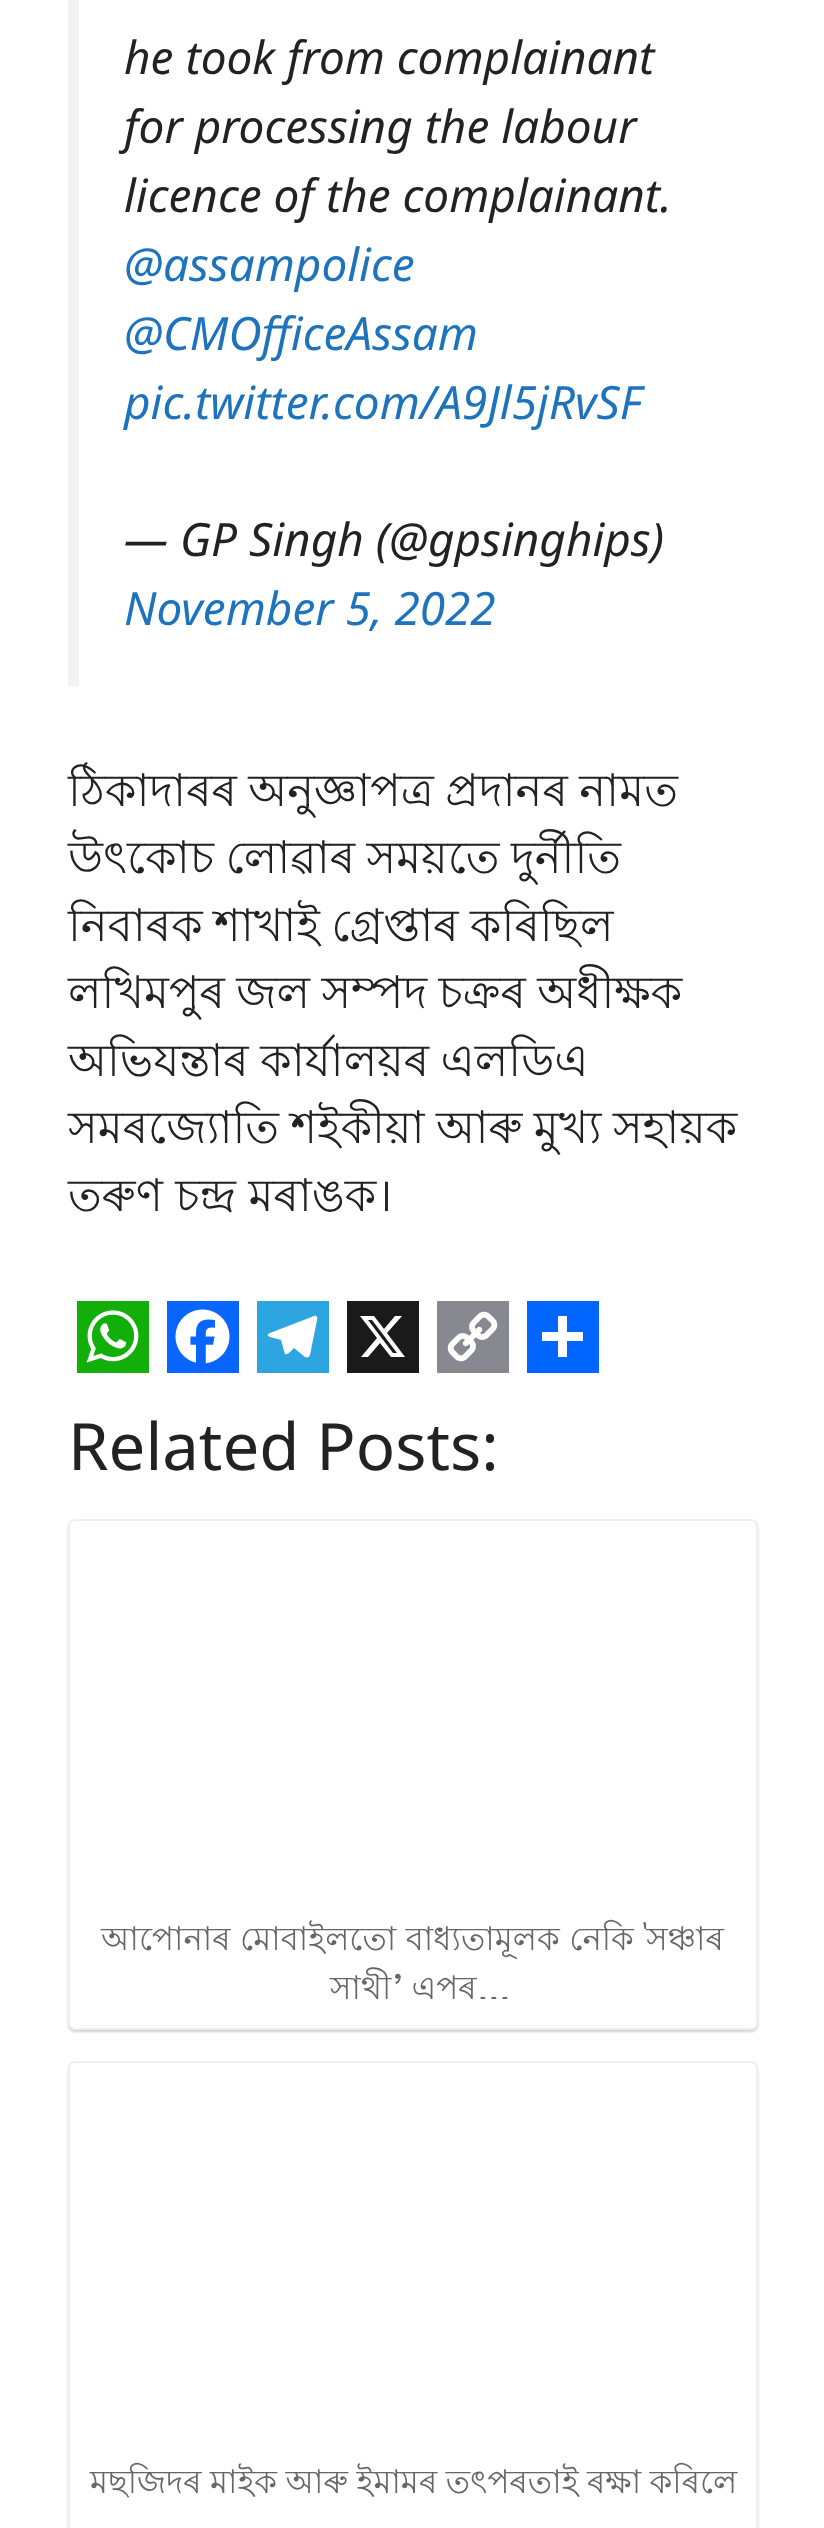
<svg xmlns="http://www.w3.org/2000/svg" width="824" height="2528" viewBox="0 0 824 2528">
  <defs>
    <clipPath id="clip1"><path d="M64 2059H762V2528H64ZM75 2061H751C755 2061 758 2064 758 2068V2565C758 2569 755 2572 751 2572H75C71 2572 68 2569 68 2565V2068C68 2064 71 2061 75 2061Z" clip-rule="evenodd"/></clipPath>
  </defs>
  <rect width="100%" height="100%" fill="#fff"/>
  <path d="M68 0h11v686H68z" fill="#f2f2f2"/>
  <path d="M77 1301h72v72H77z" fill="#12af0a"/>
  <image x="86" y="1310" width="53" height="53" href="img/1.png"/>
  <path d="M167 1301h72v72H167z" fill="#0866ff"/>
  <image x="175" y="1309" width="55" height="55" href="img/2.png"/>
  <path d="M257 1301h72v72H257z" fill="#2ca5e0"/>
  <path d="M314 1316L270 1333C267 1334 267 1336 270 1337L281 1340L285 1354C287 1356 293 1349 294 1348L305 1357C308 1358 309 1357 310 1355L317 1320C318 1316 316 1315 314 1316Z" fill="#fff"/>
  <path d="M347 1301h72v72H347z" fill="#1a1a1a"/>
  <path d="M395 1316H402L387 1333L405 1357H391L380 1343L368 1357H361L377 1338L360 1316H374L384 1329ZM393 1353H397L372 1320H368Z" fill="#fff"/>
  <path d="M437 1301h72v72H437z" fill="#888990"/>
  <image x="447" y="1311" width="51" height="51" href="img/3.png"/>
  <path d="M527 1301h72v72H527z" fill="#0166ff"/>
  <path d="M558 1316h9v41H558z" fill="#fff"/>
  <path d="M542 1332h41v9H542z" fill="#fff"/>
  <rect x="68" y="1521" width="690" height="511" rx="7" fill="#0000002e" filter="blur(1px)"/>
  <rect x="69" y="1520" width="688" height="509" rx="6" fill="#fff" stroke="#efefef" stroke-width="2"/>
  <g clip-path="url(#clip1)">
    <rect x="68" y="2063" width="690" height="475" rx="7" fill="#0000002e" filter="blur(1px)"/>
  </g>
  <rect x="69" y="2062" width="688" height="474" rx="6" fill="none" stroke="#efefef" stroke-width="2"/>
  <g font-family="Noto Sans" font-size="45.9" font-style="italic" fill="#222">
    <text x="124" y="74">he took from complainant</text>
    <text x="124" y="143">for processing the labour</text>
    <text x="124" y="212">licence of the complainant.</text>
  </g>
  <g font-family="Noto Sans" font-size="45.9" font-style="italic" fill="#1e73be">
    <text x="124" y="281">@assampolice</text>
    <text x="124" y="350">@CMOfficeAssam</text>
    <text x="124" y="419">pic.twitter.com/A9Jl5jRvSF</text>
  </g>
  <text x="124" y="556" font-family="Noto Sans" font-size="45.9" font-style="italic" fill="#222">— GP Singh (@gpsinghips)</text>
  <text x="124" y="625" font-family="Noto Sans" font-size="45.9" font-style="italic" fill="#1e73be">November 5, 2022</text>
  <g font-family="Lohit Bengali" font-size="45" fill="#222">
    <text x="68" y="806" word-spacing="-1">ঠিকাদাৰৰ অনুজ্ঞাপত্ৰ প্ৰদানৰ নামত</text>
    <text x="68" y="873" word-spacing="-1">উৎকোচ লোৱাৰ সময়তে দুৰ্নীতি</text>
    <text x="68" y="941" word-spacing="-1">নিবাৰক শাখাই গ্ৰেপ্তাৰ কৰিছিল</text>
    <text x="68" y="1008" word-spacing="-1">লখিমপুৰ জল সম্পদ চক্ৰৰ অধীক্ষক</text>
    <text x="68" y="1076" word-spacing="-1">অভিযন্তাৰ কাৰ্যালয়ৰ এলডিএ</text>
    <text x="68" y="1143" word-spacing="-1">সমৰজ্যোতি শইকীয়া আৰু মুখ্য সহায়ক</text>
    <text x="68" y="1211">তৰুণ চন্দ্ৰ মৰাঙক।</text>
  </g>
  <text x="68" y="1470" font-family="Noto Sans" font-size="65.25" fill="#222">Related Posts:</text>
  <g font-family="Lohit Bengali" font-size="32.5" fill="#666">
    <text x="101" y="1950" word-spacing="0.5">আপোনাৰ মোবাইলতো বাধ্যতামূলক নেকি 'সঞ্চাৰ</text>
    <text x="330" y="1999" word-spacing="-2">সাথী’ এপৰ…</text>
    <text x="90" y="2493" word-spacing="-0.5">মছজিদৰ মাইক আৰু ইমামৰ তৎপৰতাই ৰক্ষা কৰিলে</text>
  </g>
</svg>
